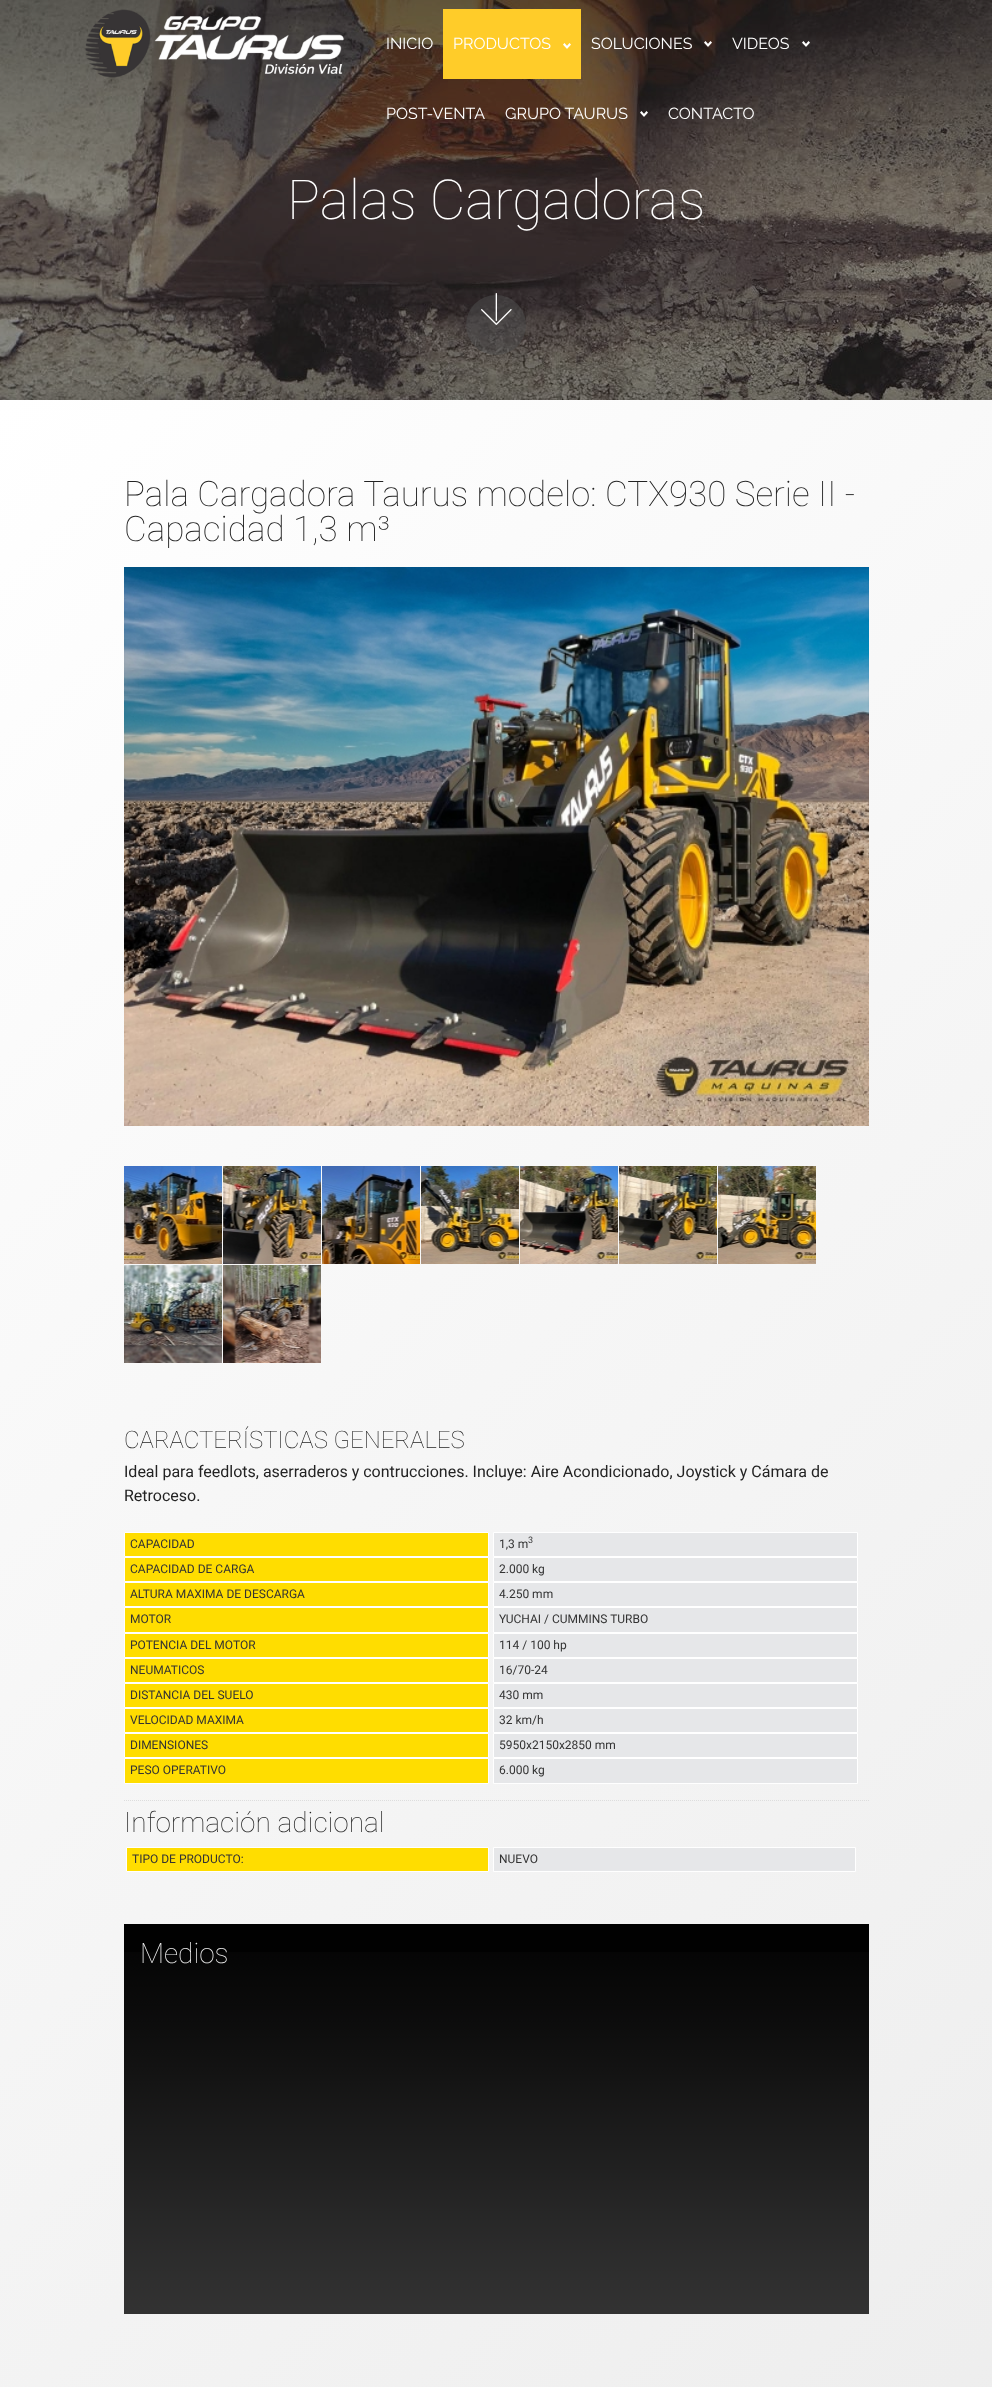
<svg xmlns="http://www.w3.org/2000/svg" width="992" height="2387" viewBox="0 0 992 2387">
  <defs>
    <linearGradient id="g1" gradientUnits="userSpaceOnUse" x1="-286" y1="686" x2="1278" y2="2249"><stop offset="0" stop-color="#fff"/><stop offset="0.47" stop-color="#f6f6f6"/><stop offset="1" stop-color="#ededed"/></linearGradient>
  </defs>
  <rect width="100%" height="100%" fill="#fff"/>
  <image x="0" y="0" width="992" height="400" href="img/6.png"/>
  <image x="85" y="9" width="260" height="69" href="img/1.png"/>
  <path d="M443 9h138v70H443z" fill="#ffcc29"/>
  <image x="563" y="43" width="8" height="6" href="img/2.png"/>
  <image x="704" y="41" width="8" height="6" href="img/3.png"/>
  <image x="802" y="41" width="8" height="6" href="img/4.png"/>
  <image x="640" y="111" width="8" height="6" href="img/5.png"/>
  <circle cx="496" cy="325" r="30" fill="#50505080"/>
  <image x="481" y="293" width="31" height="32" href="img/7.png"/>
  <path d="M0 400h992v1987H0z" fill="url(#g1)"/>
  <image x="124" y="567" width="745" height="559" href="img/8.png"/>
  <image x="124" y="1166" width="98" height="98" href="img/9.png"/>
  <image x="223" y="1166" width="98" height="98" href="img/10.png"/>
  <image x="322" y="1166" width="98" height="98" href="img/11.png"/>
  <image x="421" y="1166" width="98" height="98" href="img/12.png"/>
  <image x="520" y="1166" width="98" height="98" href="img/13.png"/>
  <image x="619" y="1166" width="98" height="98" href="img/14.png"/>
  <image x="718" y="1166" width="98" height="98" href="img/15.png"/>
  <image x="124" y="1265" width="98" height="98" href="img/16.png"/>
  <image x="223" y="1265" width="98" height="98" href="img/17.png"/>
  <path d="M124.5 1532.5h364v24H124.5z" fill="#fd0" stroke="#fff"/>
  <path d="M493.5 1532.5h364v24H493.5z" fill="#e6e7e9" stroke="#fff"/>
  <path d="M124.5 1557.5h364v24H124.5z" fill="#fd0" stroke="#fff"/>
  <path d="M493.5 1557.5h364v24H493.5z" fill="#e6e7e9" stroke="#fff"/>
  <path d="M124.5 1582.5h364v24H124.5z" fill="#fd0" stroke="#fff"/>
  <path d="M493.5 1582.5h364v24H493.5z" fill="#e6e7e9" stroke="#fff"/>
  <path d="M124.5 1607.5h364v25H124.5z" fill="#fd0" stroke="#fff"/>
  <path d="M493.5 1607.5h364v25H493.5z" fill="#e6e7e9" stroke="#fff"/>
  <path d="M124.5 1633.5h364v24H124.5z" fill="#fd0" stroke="#fff"/>
  <path d="M493.5 1633.5h364v24H493.5z" fill="#e6e7e9" stroke="#fff"/>
  <path d="M124.5 1658.5h364v24H124.5z" fill="#fd0" stroke="#fff"/>
  <path d="M493.5 1658.5h364v24H493.5z" fill="#e6e7e9" stroke="#fff"/>
  <path d="M124.5 1683.5h364v24H124.5z" fill="#fd0" stroke="#fff"/>
  <path d="M493.5 1683.5h364v24H493.5z" fill="#e6e7e9" stroke="#fff"/>
  <path d="M124.5 1708.5h364v24H124.5z" fill="#fd0" stroke="#fff"/>
  <path d="M493.5 1708.5h364v24H493.5z" fill="#e6e7e9" stroke="#fff"/>
  <path d="M124.5 1733.5h364v24H124.5z" fill="#fd0" stroke="#fff"/>
  <path d="M493.5 1733.5h364v24H493.5z" fill="#e6e7e9" stroke="#fff"/>
  <path d="M124.5 1758.5h364v25H124.5z" fill="#fd0" stroke="#fff"/>
  <path d="M493.5 1758.5h364v25H493.5z" fill="#e6e7e9" stroke="#fff"/>
  <path d="M124 1800.5H869" fill="none" stroke="#ddd" stroke-dasharray="1 1"/>
  <path d="M126.5 1847.5h362v24H126.5z" fill="#fd0" stroke="#fff"/>
  <path d="M493.5 1847.5h362v24H493.5z" fill="#e6e7e9" stroke="#fff"/>
  <path d="M124 1924h745v28H124z" fill="#010101"/>
  <image x="124" y="1952" width="745" height="362" href="img/18.png"/>
  <g font-family="Raleway" font-size="16" fill="#fff">
    <text x="386" y="49">INICIO</text>
    <text x="453" y="49">PRODUCTOS</text>
    <text x="591" y="49">SOLUCIONES</text>
    <text x="732" y="49">VIDEOS</text>
    <text x="386" y="119">POST-VENTA</text>
    <text x="505" y="119">GRUPO TAURUS</text>
    <text x="668" y="119">CONTACTO</text>
  </g>
  <text x="287" y="219" font-family="Roboto" font-size="55" font-weight="100" fill="#fff">Palas Cargadoras</text>
  <g font-family="Roboto" font-size="35" font-weight="100" fill="#232323">
    <text x="124" y="506">Pala Cargadora Taurus modelo: CTX930 Serie II -</text>
    <text x="124" y="541">Capacidad 1,3 m³</text>
  </g>
  <text x="124" y="1448" font-family="Roboto" font-size="24" font-weight="100" fill="#232323">CARACTERÍSTICAS GENERALES</text>
  <g font-family="Roboto" font-size="16" fill="#232323">
    <text x="124" y="1477">Ideal para feedlots, aserraderos y contrucciones. Incluye: Aire Acondicionado, Joystick y Cámara de</text>
    <text x="124" y="1501">Retroceso.</text>
  </g>
  <g font-family="Roboto" font-size="12" fill="#333">
    <text x="130" y="1548">CAPACIDAD</text>
    <text x="499" y="1548">1,3 m</text>
  </g>
  <text x="528" y="1543" font-family="Roboto" font-size="9" fill="#333">3</text>
  <g font-family="Roboto" font-size="12" fill="#333">
    <text x="130" y="1573">CAPACIDAD DE CARGA</text>
    <text x="499" y="1573">2.000 kg</text>
    <text x="130" y="1598">ALTURA MAXIMA DE DESCARGA</text>
    <text x="499" y="1598">4.250 mm</text>
    <text x="130" y="1623">MOTOR</text>
    <text x="499" y="1623">YUCHAI / CUMMINS TURBO</text>
    <text x="130" y="1649">POTENCIA DEL MOTOR</text>
    <text x="499" y="1649">114 / 100 hp</text>
    <text x="130" y="1674">NEUMATICOS</text>
    <text x="499" y="1674">16/70-24</text>
    <text x="130" y="1699">DISTANCIA DEL SUELO</text>
    <text x="499" y="1699">430 mm</text>
    <text x="130" y="1724">VELOCIDAD MAXIMA</text>
    <text x="499" y="1724">32 km/h</text>
    <text x="130" y="1749">DIMENSIONES</text>
    <text x="499" y="1749">5950x2150x2850 mm</text>
    <text x="130" y="1774">PESO OPERATIVO</text>
    <text x="499" y="1774">6.000 kg</text>
  </g>
  <text x="124" y="1832" font-family="Roboto" font-size="28" font-weight="100" fill="#232323">Información adicional</text>
  <g font-family="Roboto" font-size="12" fill="#333">
    <text x="132" y="1863">TIPO DE PRODUCTO:</text>
    <text x="499" y="1863">NUEVO</text>
  </g>
  <text x="140" y="1963" font-family="Roboto" font-size="28" font-weight="100" fill="#eee">Medios</text>
</svg>
